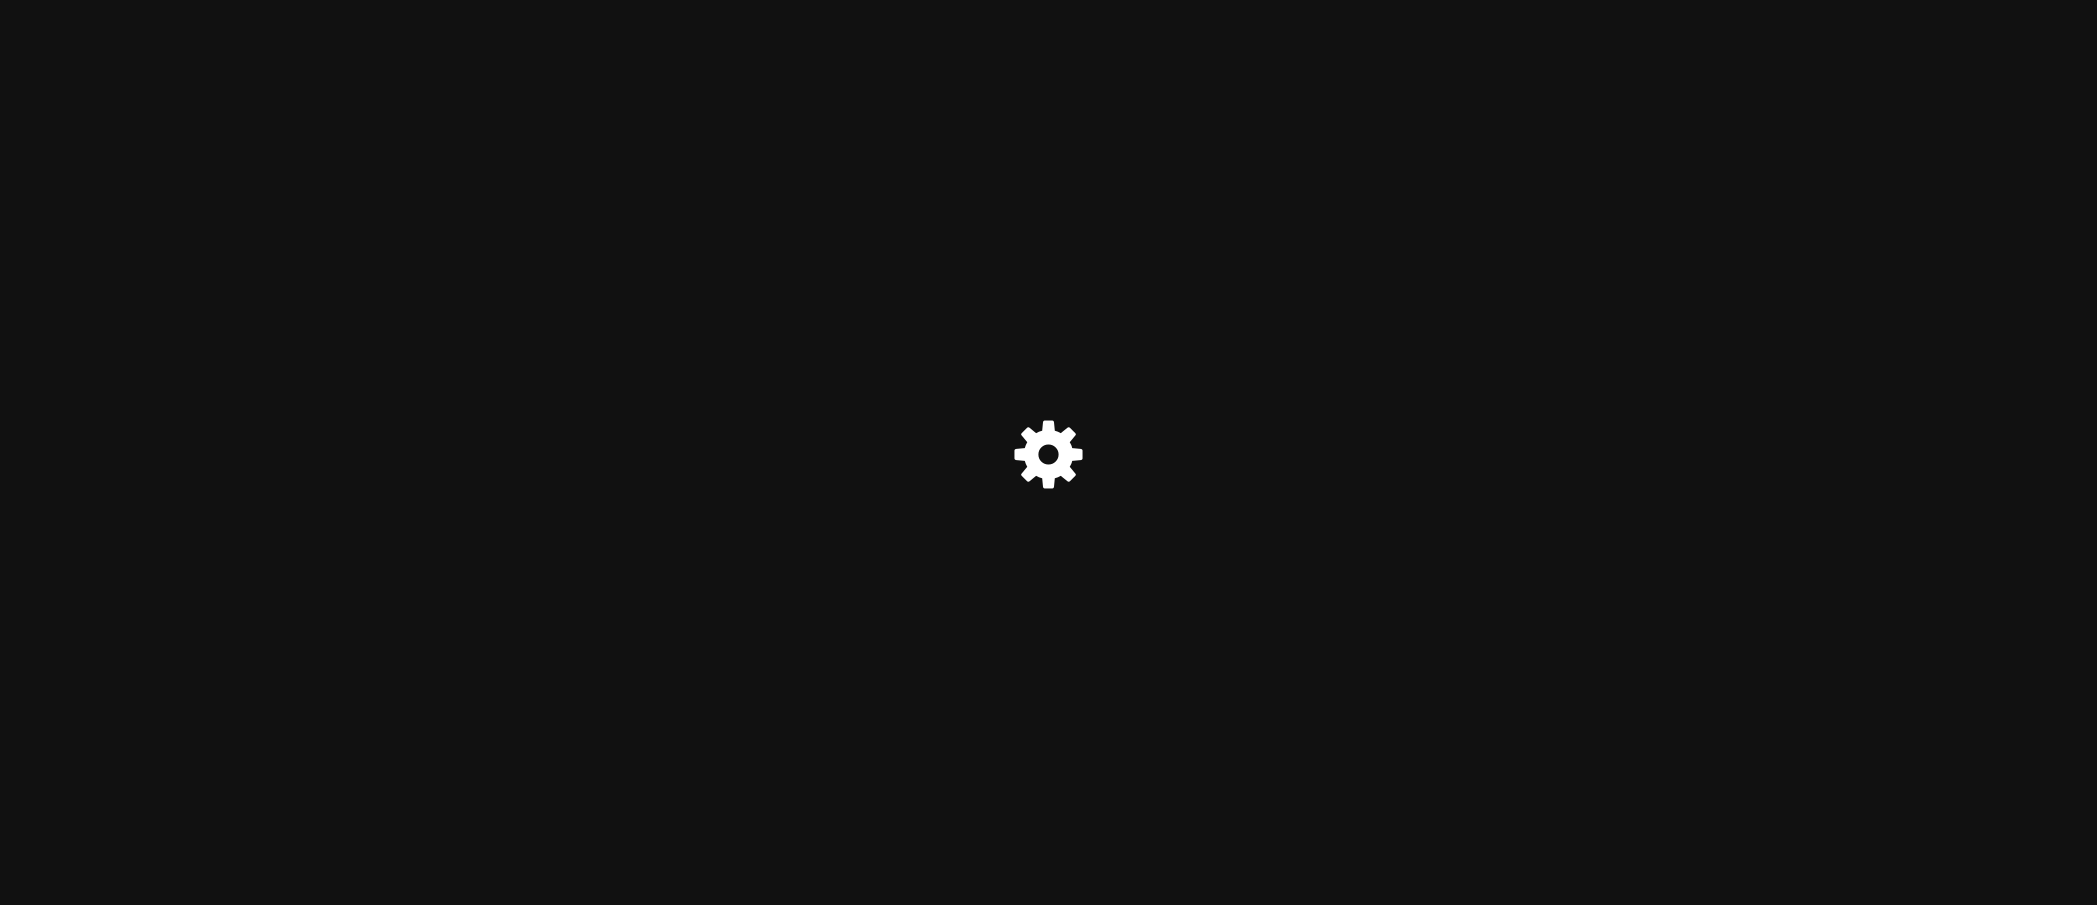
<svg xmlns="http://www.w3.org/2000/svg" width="2097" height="905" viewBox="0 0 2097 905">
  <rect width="100%" height="100%" fill="#111"/>
  <image x="1014" y="420" width="69" height="69" href="img/1.png"/>
</svg>
